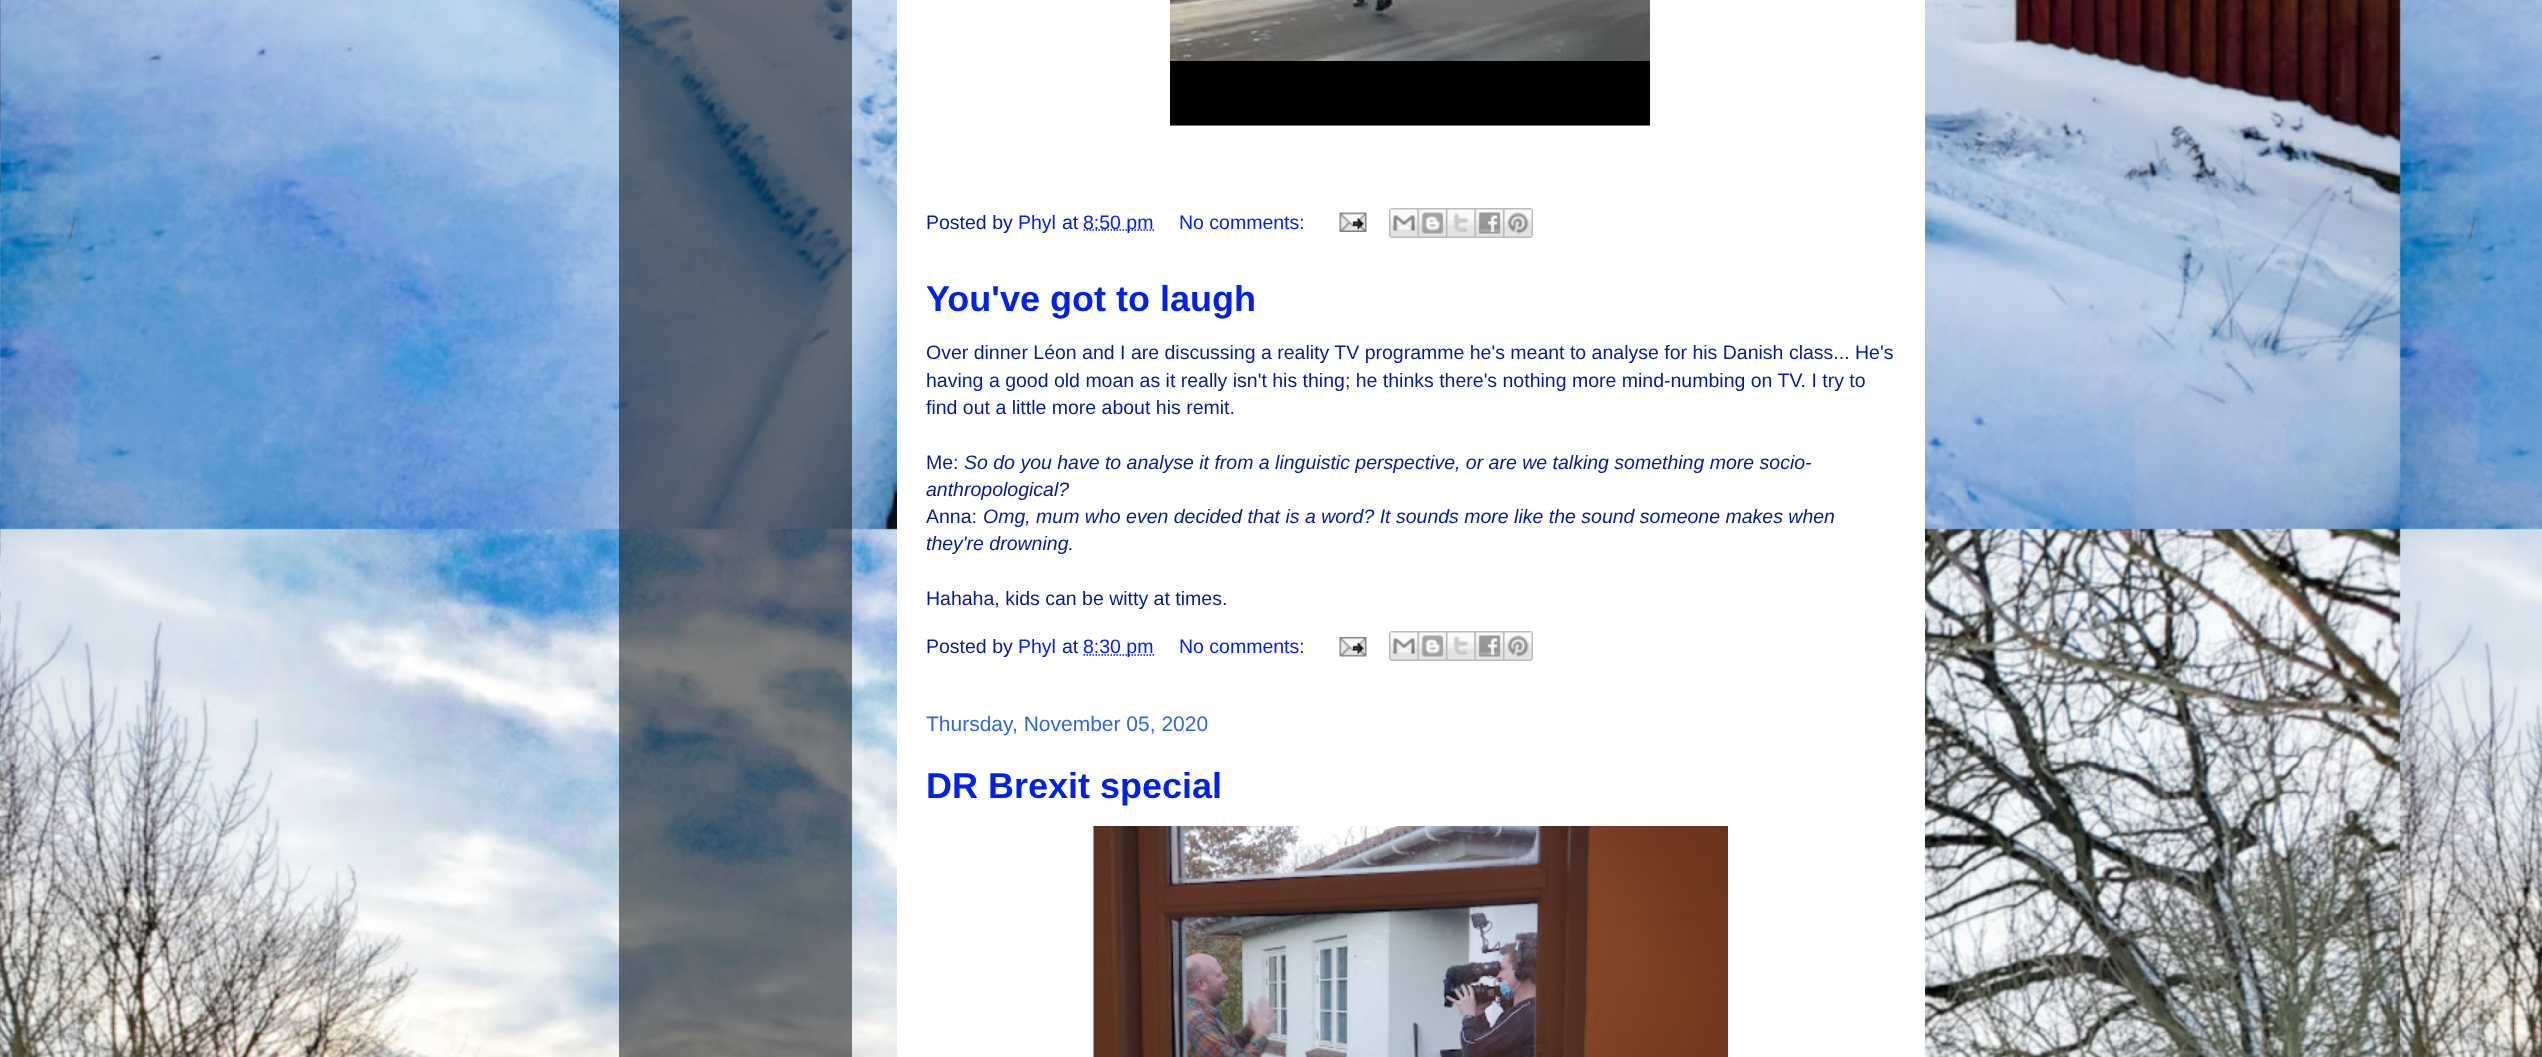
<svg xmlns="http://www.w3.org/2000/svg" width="2542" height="1057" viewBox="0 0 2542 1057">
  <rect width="100%" height="100%" fill="#fff"/>
  <image x="0" y="0" width="2542" height="1057" href="img/1.png"/>
  <path d="M619 0h233v1057H619z" fill="#00000080"/>
  <path d="M897 0h1028v1057H897z" fill="#fff"/>
  <image x="1170" y="0" width="480" height="126" href="img/2.png"/>
  <path d="M1083.5 230H1154" fill="none" stroke="#0021ea" stroke-width="1.5" stroke-dasharray="1.5 1.5"/>
  <image x="1339" y="212" width="28" height="20" href="img/3.png"/>
  <image x="1389" y="208" width="29" height="30" href="img/4.png"/>
  <image x="1417" y="208" width="29" height="30" href="img/5.png"/>
  <image x="1446" y="208" width="29" height="30" href="img/6.png"/>
  <image x="1474" y="208" width="29" height="30" href="img/7.png"/>
  <image x="1503" y="208" width="30" height="30" href="img/8.png"/>
  <path d="M1083.5 655H1154" fill="none" stroke="#0021ea" stroke-width="1.5" stroke-dasharray="1.5 1.5"/>
  <image x="1339" y="637" width="28" height="20" href="img/9.png"/>
  <image x="1389" y="631" width="29" height="30" href="img/4.png"/>
  <image x="1417" y="631" width="29" height="30" href="img/5.png"/>
  <image x="1446" y="631" width="29" height="30" href="img/6.png"/>
  <image x="1474" y="631" width="29" height="30" href="img/7.png"/>
  <image x="1503" y="631" width="30" height="30" href="img/8.png"/>
  <image x="1093" y="826" width="635" height="231" href="img/10.png"/>
  <text x="926" y="229" font-family="Liberation Sans" font-size="19.5" fill="#071a8f">Posted by</text>
  <text x="1018" y="229" font-family="Liberation Sans" font-size="19.5" fill="#0021ea">Phyl</text>
  <text x="1062" y="229" font-family="Liberation Sans" font-size="19.5" fill="#071a8f">at</text>
  <g font-family="Liberation Sans" font-size="19.5" fill="#0021ea">
    <text x="1083" y="229">8:50 pm</text>
    <text x="1179" y="229">No comments:</text>
  </g>
  <text x="926" y="311" font-family="Liberation Sans" font-size="36" font-weight="bold" fill="#0021ea">You've got to laugh</text>
  <g font-family="Liberation Sans" font-size="19.5" fill="#071a8f">
    <text x="926" y="359">Over dinner Léon and I are discussing a reality TV programme he's meant to analyse for his Danish class... He's</text>
    <text x="926" y="387">having a good old moan as it really isn't his thing; he thinks there's nothing more mind-numbing on TV. I try to</text>
    <text x="926" y="414">find out a little more about his remit.</text>
    <text x="926" y="469">Me:</text>
  </g>
  <g font-family="Liberation Sans" font-size="19.5" font-style="italic" fill="#071a8f">
    <text x="964" y="469">So do you have to analyse it from a linguistic perspective, or are we talking something more socio-</text>
    <text x="926" y="496">anthropological?</text>
  </g>
  <text x="926" y="523" font-family="Liberation Sans" font-size="19.5" fill="#071a8f">Anna:</text>
  <g font-family="Liberation Sans" font-size="19.5" font-style="italic" fill="#071a8f">
    <text x="983" y="523">Omg, mum who even decided that is a word? It sounds more like the sound someone makes when</text>
    <text x="926" y="550">they're drowning.</text>
  </g>
  <g font-family="Liberation Sans" font-size="19.5" fill="#071a8f">
    <text x="926" y="605">Hahaha, kids can be witty at times.</text>
    <text x="926" y="653">Posted by</text>
  </g>
  <text x="1018" y="653" font-family="Liberation Sans" font-size="19.5" fill="#0021ea">Phyl</text>
  <text x="1062" y="653" font-family="Liberation Sans" font-size="19.5" fill="#071a8f">at</text>
  <g font-family="Liberation Sans" font-size="19.5" fill="#0021ea">
    <text x="1083" y="653">8:30 pm</text>
    <text x="1179" y="653">No comments:</text>
  </g>
  <text x="926" y="731" font-family="Liberation Sans" font-size="21" fill="#3367d6">Thursday, November 05, 2020</text>
  <text x="926" y="798" font-family="Liberation Sans" font-size="36" font-weight="bold" fill="#0021ea">DR Brexit special</text>
</svg>
